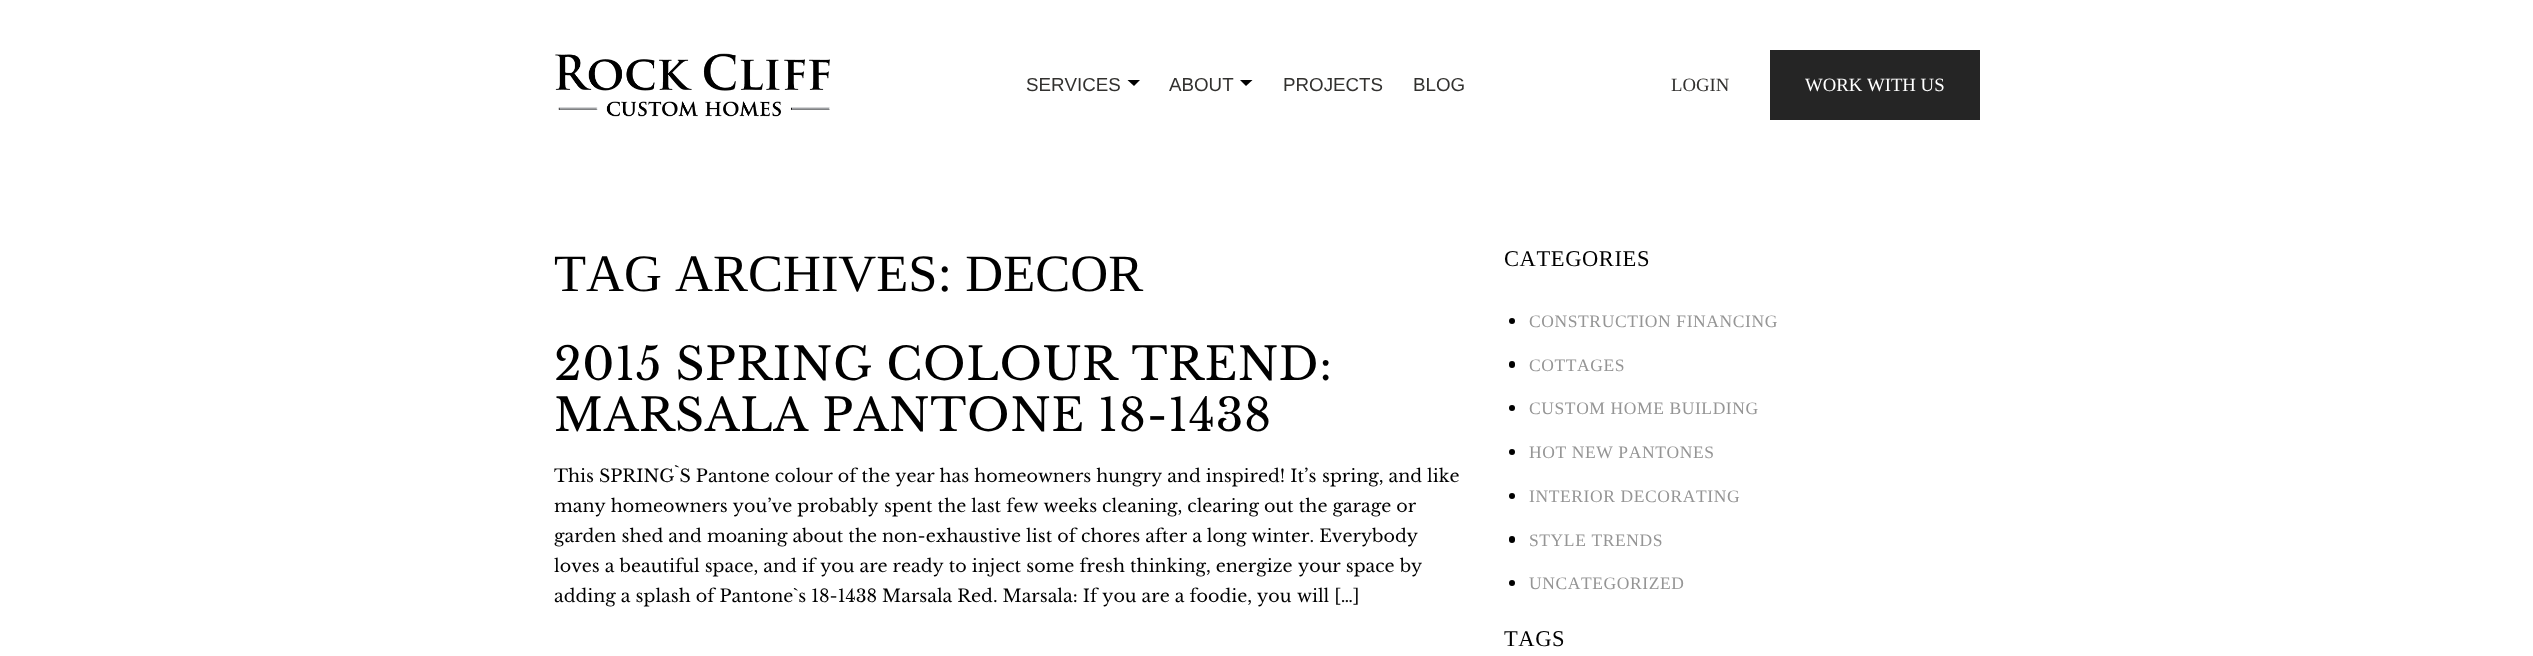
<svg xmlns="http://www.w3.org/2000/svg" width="2533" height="656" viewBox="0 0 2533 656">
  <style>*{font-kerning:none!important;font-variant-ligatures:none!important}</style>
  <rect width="100%" height="100%" fill="#fff"/>
  <image x="555" y="53" width="275" height="64" href="img/1.png"/>
  <path d="M1127.5 80H1140L1134 86Z" fill="#000"/>
  <path d="M1240 80H1252.5L1246 86Z" fill="#000"/>
  <path d="M1770 50h210v70H1770z" fill="#252525"/>
  <circle cx="1512" cy="321" r="3" fill="#000"/>
  <rect x="1509" y="361" width="6" height="7" rx="3" fill="#000"/>
  <circle cx="1512" cy="408" r="3" fill="#000"/>
  <circle cx="1512" cy="452" r="3" fill="#000"/>
  <circle cx="1512" cy="496" r="3" fill="#000"/>
  <rect x="1509" y="536" width="6" height="7" rx="3" fill="#000"/>
  <circle cx="1512" cy="583" r="3" fill="#000"/>
  <g font-family="Liberation Sans" font-size="18.75" fill="#32312f">
    <text x="1026" y="91">SERVICES</text>
    <text x="1169" y="91">ABOUT</text>
    <text x="1283" y="91">PROJECTS</text>
    <text x="1413" y="91">BLOG</text>
  </g>
  <text x="1671" y="91" font-family="Liberation Serif" font-size="18.75" fill="#32312f">LOGIN</text>
  <text x="1805" y="91" font-family="Liberation Serif" font-size="18.75" fill="#fff">WORK WITH US</text>
  <text x="554" y="291" font-family="Liberation Serif" font-size="52.5" fill="#000">TAG ARCHIVES: DECOR</text>
  <g font-family="Libre Baskerville" font-size="45" letter-spacing="0.6" fill="#000">
    <text x="554" y="380">2015 SPRING COLOUR TREND:</text>
    <text x="554" y="431">MARSALA PANTONE 18-1438</text>
  </g>
  <g font-family="Libre Baskerville" font-size="17.5" fill="#000">
    <text x="554" y="482">This SPRING`S Pantone colour of the year has homeowners hungry and inspired! It’s</text>
    <text x="1322" y="482">spring, and like</text>
    <text x="554" y="512">many homeowners you’ve probably</text>
    <text x="884" y="512">spent the last few weeks cleaning, clearing out the garage or</text>
    <text x="554" y="542">garden shed and moaning about the non-exhaustive list of chores after a long winter. Everybody</text>
    <text x="554" y="572">loves a beautiful space, and if you are ready to inject some fresh thinking, energize</text>
    <text x="1298" y="572">your space by</text>
    <text x="554" y="602">adding a splash of Pantone`s 18-1438 Marsala Red. Marsala: If you are a foodie, you</text>
    <text x="1297" y="602">will […]</text>
  </g>
  <text x="1504" y="266" font-family="Liberation Serif" font-size="22.5" letter-spacing="0.6" fill="#000">CATEGORIES</text>
  <g font-family="Liberation Serif" font-size="17.5" letter-spacing="0.6" fill="#959595">
    <text x="1529" y="327">CONSTRUCTION FINANCING</text>
    <text x="1529" y="371">COTTAGES</text>
    <text x="1529" y="414">CUSTOM HOME BUILDING</text>
    <text x="1529" y="458">HOT NEW PANTONES</text>
    <text x="1529" y="502">INTERIOR DECORATING</text>
    <text x="1529" y="546">STYLE TRENDS</text>
    <text x="1529" y="589">UNCATEGORIZED</text>
  </g>
  <text x="1504" y="646" font-family="Liberation Serif" font-size="22.5" letter-spacing="0.6" fill="#000">TAGS</text>
</svg>
